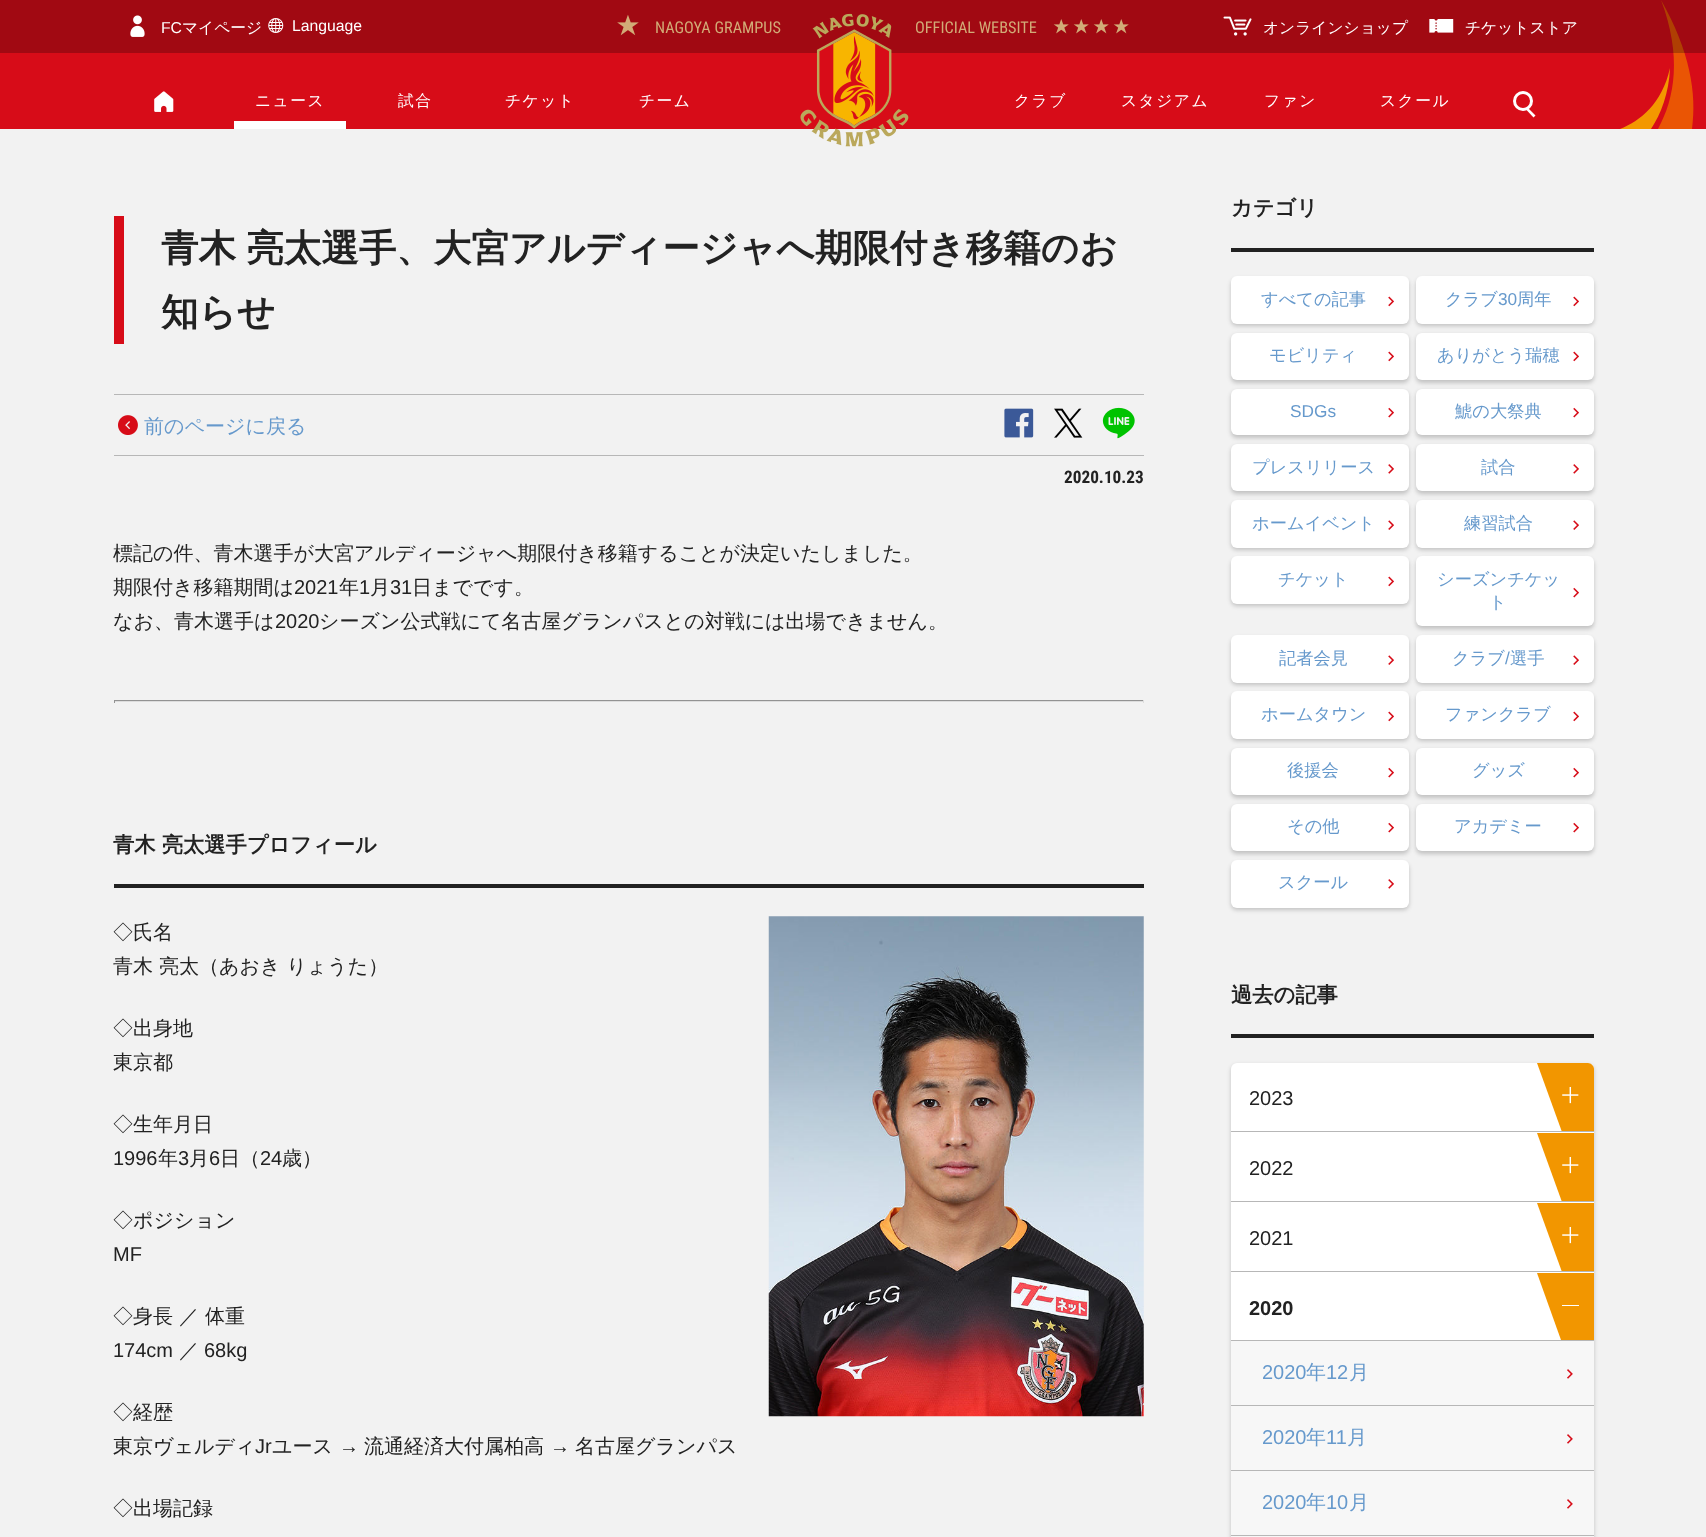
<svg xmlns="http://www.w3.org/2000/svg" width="1706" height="1537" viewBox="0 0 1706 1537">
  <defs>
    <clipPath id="clip1"><path d="M1231 1063h363v68H1231z"/></clipPath>
    <clipPath id="clip2"><path d="M1231 1133h363v68H1231z"/></clipPath>
    <clipPath id="clip3"><path d="M1231 1203h363v68H1231z"/></clipPath>
  </defs>
  <rect width="100%" height="100%" fill="#f2f2f2"/>
  <path d="M0 0h1706v129H0z" fill="#d70c18"/>
  <path d="M1661 0C1682 56 1675 98 1658 129H1692C1697 94 1690 51 1661 0Z" fill="#ea5504"/>
  <path d="M0 0h1706v53H0z" fill="#00000040"/>
  <image x="800" y="13" width="109" height="134" href="img/1.png"/>
  <image x="130" y="15" width="15" height="22" href="img/2.png"/>
  <image x="268" y="18" width="16" height="15" href="img/3.png"/>
  <image x="1223" y="16" width="29" height="20" href="img/4.png"/>
  <image x="1429" y="19" width="25" height="14" href="img/5.png"/>
  <image x="154" y="91" width="20" height="21" href="img/6.png"/>
  <path d="M234 121h112v8H234z" fill="#fff"/>
  <circle cx="1523" cy="101" r="8.5" fill="none" stroke="#fff" stroke-width="3"/>
  <path d="M1527.5 107.5L1535.5 115.5L1533.5 117.5L1526 109.5Z" fill="#fff"/>
  <image x="617" y="14" width="22" height="22" href="img/7.png"/>
  <image x="1053" y="19" width="16" height="15" href="img/8.png"/>
  <image x="1073" y="19" width="16" height="15" href="img/8.png"/>
  <image x="1093" y="19" width="16" height="15" href="img/8.png"/>
  <image x="1113" y="19" width="16" height="15" href="img/8.png"/>
  <path d="M1620 129H1651C1661 114 1669 93 1670 68C1662 104 1640 121 1620 129Z" fill="#f39800"/>
  <path d="M114 216h10v128H114z" fill="#d70c18"/>
  <path d="M114 394h1030v1H114z" fill="#b7b7b7"/>
  <path d="M114 455h1030v1H114z" fill="#b7b7b7"/>
  <image x="118" y="415" width="20" height="20" href="img/9.png"/>
  <image x="1004" y="408" width="30" height="30" href="img/10.png"/>
  <image x="1054" y="408" width="29" height="30" href="img/11.png"/>
  <image x="1102" y="407" width="33" height="32" href="img/12.png"/>
  <path d="M114 700h1030v1H114z" fill="#939393"/>
  <path d="M1143 700h1v3H1143z" fill="#ddd"/>
  <path d="M114 701h1030v1H114z" fill="#ddd"/>
  <path d="M114 700h1v3H114z" fill="#939393"/>
  <path d="M114 884h1030v4H114z" fill="#222"/>
  <image x="768" y="916" width="376" height="501" href="img/13.png"/>
  <path d="M1231 248h363v4H1231z" fill="#222"/>
  <rect x="1231" y="279" width="178" height="47" rx="6" fill="#00000033" filter="blur(2px)"/>
  <rect x="1231" y="276" width="178" height="48" rx="6" fill="#fff"/>
  <image x="1388" y="296" width="6" height="11" href="img/14.png"/>
  <rect x="1416" y="279" width="178" height="47" rx="6" fill="#00000033" filter="blur(2px)"/>
  <rect x="1416" y="276" width="178" height="48" rx="6" fill="#fff"/>
  <image x="1573" y="296" width="6" height="11" href="img/14.png"/>
  <rect x="1231" y="335" width="178" height="48" rx="6" fill="#00000033" filter="blur(2px)"/>
  <rect x="1231" y="333" width="178" height="47" rx="6" fill="#fff"/>
  <image x="1388" y="351" width="6" height="11" href="img/14.png"/>
  <rect x="1416" y="335" width="178" height="48" rx="6" fill="#00000033" filter="blur(2px)"/>
  <rect x="1416" y="333" width="178" height="47" rx="6" fill="#fff"/>
  <image x="1573" y="351" width="6" height="11" href="img/14.png"/>
  <rect x="1231" y="391" width="178" height="47" rx="6" fill="#00000033" filter="blur(2px)"/>
  <rect x="1231" y="389" width="178" height="46" rx="6" fill="#fff"/>
  <image x="1388" y="407" width="6" height="11" href="img/15.png"/>
  <rect x="1416" y="391" width="178" height="47" rx="6" fill="#00000033" filter="blur(2px)"/>
  <rect x="1416" y="389" width="178" height="46" rx="6" fill="#fff"/>
  <image x="1573" y="407" width="6" height="11" href="img/15.png"/>
  <rect x="1231" y="446" width="178" height="48" rx="6" fill="#00000033" filter="blur(2px)"/>
  <rect x="1231" y="444" width="178" height="47" rx="6" fill="#fff"/>
  <image x="1388" y="464" width="6" height="10" href="img/16.png"/>
  <rect x="1416" y="446" width="178" height="48" rx="6" fill="#00000033" filter="blur(2px)"/>
  <rect x="1416" y="444" width="178" height="47" rx="6" fill="#fff"/>
  <image x="1573" y="464" width="6" height="10" href="img/16.png"/>
  <rect x="1231" y="503" width="178" height="47" rx="6" fill="#00000033" filter="blur(2px)"/>
  <rect x="1231" y="500" width="178" height="48" rx="6" fill="#fff"/>
  <image x="1388" y="520" width="6" height="10" href="img/17.png"/>
  <rect x="1416" y="503" width="178" height="47" rx="6" fill="#00000033" filter="blur(2px)"/>
  <rect x="1416" y="500" width="178" height="48" rx="6" fill="#fff"/>
  <image x="1573" y="520" width="6" height="10" href="img/17.png"/>
  <rect x="1231" y="559" width="178" height="47" rx="6" fill="#00000033" filter="blur(2px)"/>
  <rect x="1231" y="556" width="178" height="48" rx="6" fill="#fff"/>
  <image x="1388" y="576" width="6" height="11" href="img/14.png"/>
  <rect x="1416" y="559" width="178" height="70" rx="6" fill="#00000033" filter="blur(2px)"/>
  <rect x="1416" y="556" width="178" height="70" rx="6" fill="#fff"/>
  <image x="1573" y="587" width="6" height="11" href="img/15.png"/>
  <rect x="1231" y="638" width="178" height="47" rx="6" fill="#00000033" filter="blur(2px)"/>
  <rect x="1231" y="635" width="178" height="48" rx="6" fill="#fff"/>
  <image x="1388" y="655" width="6" height="10" href="img/17.png"/>
  <rect x="1416" y="638" width="178" height="47" rx="6" fill="#00000033" filter="blur(2px)"/>
  <rect x="1416" y="635" width="178" height="48" rx="6" fill="#fff"/>
  <image x="1573" y="655" width="6" height="10" href="img/17.png"/>
  <rect x="1231" y="694" width="178" height="47" rx="6" fill="#00000033" filter="blur(2px)"/>
  <rect x="1231" y="691" width="178" height="48" rx="6" fill="#fff"/>
  <image x="1388" y="711" width="6" height="11" href="img/14.png"/>
  <rect x="1416" y="694" width="178" height="47" rx="6" fill="#00000033" filter="blur(2px)"/>
  <rect x="1416" y="691" width="178" height="48" rx="6" fill="#fff"/>
  <image x="1573" y="711" width="6" height="11" href="img/14.png"/>
  <rect x="1231" y="750" width="178" height="48" rx="6" fill="#00000033" filter="blur(2px)"/>
  <rect x="1231" y="748" width="178" height="47" rx="6" fill="#fff"/>
  <image x="1388" y="767" width="6" height="11" href="img/15.png"/>
  <rect x="1416" y="750" width="178" height="48" rx="6" fill="#00000033" filter="blur(2px)"/>
  <rect x="1416" y="748" width="178" height="47" rx="6" fill="#fff"/>
  <image x="1573" y="767" width="6" height="11" href="img/15.png"/>
  <rect x="1231" y="806" width="178" height="48" rx="6" fill="#00000033" filter="blur(2px)"/>
  <rect x="1231" y="804" width="178" height="47" rx="6" fill="#fff"/>
  <image x="1388" y="822" width="6" height="11" href="img/15.png"/>
  <rect x="1416" y="806" width="178" height="48" rx="6" fill="#00000033" filter="blur(2px)"/>
  <rect x="1416" y="804" width="178" height="47" rx="6" fill="#fff"/>
  <image x="1573" y="822" width="6" height="11" href="img/15.png"/>
  <rect x="1231" y="863" width="178" height="47" rx="6" fill="#00000033" filter="blur(2px)"/>
  <rect x="1231" y="860" width="178" height="48" rx="6" fill="#fff"/>
  <image x="1388" y="879" width="6" height="10" href="img/16.png"/>
  <path d="M1231 1034h363v4H1231z" fill="#222"/>
  <rect x="1231" y="1065" width="363" height="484" rx="6" fill="#00000033" filter="blur(2px)"/>
  <rect x="1231" y="1063" width="363" height="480" rx="6" fill="#fff"/>
  <g clip-path="url(#clip1)">
    <path d="M1537 1063L1562 1132H1594V1069C1594 1066 1591 1063 1588 1063Z" fill="#f29600"/>
  </g>
  <image x="1562" y="1086" width="17" height="18" href="img/18.png"/>
  <path d="M1231 1131h363v1H1231z" fill="#b7b7b7"/>
  <g clip-path="url(#clip2)">
    <path d="M1537 1133H1594V1202H1562Z" fill="#f29600"/>
  </g>
  <image x="1562" y="1156" width="17" height="18" href="img/18.png"/>
  <path d="M1231 1201h363v1H1231z" fill="#b7b7b7"/>
  <g clip-path="url(#clip3)">
    <path d="M1537 1203H1594V1272H1562Z" fill="#f29600"/>
  </g>
  <image x="1562" y="1226" width="17" height="18" href="img/18.png"/>
  <path d="M1231 1271h363v1H1231z" fill="#b7b7b7"/>
  <path d="M1231 1340h363v1H1231z" fill="#b7b7b7"/>
  <path d="M1537 1273H1594V1340H1561Z" fill="#f29600"/>
  <path d="M1562 1305h17v1H1562z" fill="#fff"/>
  <path d="M1231 1341h363v196H1231z" fill="#f7f7f7"/>
  <image x="1567" y="1369" width="6" height="10" href="img/19.png"/>
  <path d="M1231 1405h363v1H1231z" fill="#b7b7b7"/>
  <image x="1567" y="1434" width="6" height="10" href="img/19.png"/>
  <path d="M1231 1470h363v1H1231z" fill="#b7b7b7"/>
  <image x="1567" y="1499" width="6" height="10" href="img/19.png"/>
  <path d="M1231 1535h363v1H1231z" fill="#b7b7b7"/>
  <text x="161" y="33" font-family="Liberation Sans" font-size="15.75" fill="#fff">FC</text>
  <text x="182" y="33" font-family="WenQuanYi Zen Hei" font-size="15.75" font-weight="500" fill="#fff">マイページ</text>
  <text x="292" y="31" font-family="Liberation Sans" font-size="15.75" fill="#fff">Language</text>
  <g font-family="WenQuanYi Zen Hei" font-size="15.75" font-weight="500" fill="#fff">
    <text x="1263" y="33">オンラインショップ</text>
    <text x="1465" y="33">チケットストア</text>
  </g>
  <g font-family="WenQuanYi Zen Hei" font-size="15.75" font-weight="500" letter-spacing="1.5" fill="#fff">
    <text x="255" y="106">ニュース</text>
    <text x="398" y="106">試合</text>
    <text x="505" y="106">チケット</text>
    <text x="639" y="106">チーム</text>
    <text x="1014" y="106">クラブ</text>
    <text x="1121" y="106">スタジアム</text>
    <text x="1264" y="106">ファン</text>
    <text x="1380" y="106">スクール</text>
  </g>
  <g font-family="Roboto Condensed" font-size="16.25" fill="#d2ab77">
    <text x="655" y="33">NAGOYA GRAMPUS</text>
    <text x="915" y="33">OFFICIAL WEBSITE</text>
  </g>
  <g font-family="WenQuanYi Zen Hei" font-size="37.5" font-weight="bold" fill="#222">
    <text x="161" y="261" word-spacing="-1">青木 亮太選手、大宮アルディージャへ期限付き移籍のお</text>
    <text x="161" y="325">知らせ</text>
  </g>
  <text x="144" y="433" font-family="WenQuanYi Zen Hei" font-size="20" font-weight="500" fill="#69c">前のページに戻る</text>
  <text x="1064" y="483" font-family="Roboto Condensed" font-size="17.25" font-weight="bold" fill="#222">2020.10.23</text>
  <g font-family="WenQuanYi Zen Hei" font-size="20" font-weight="500" fill="#222">
    <text x="113" y="560">標記の件、青木選手が大宮アルディージャへ期限付き移籍することが決定いたしました。</text>
    <text x="113" y="594">期限付き移籍期間は</text>
  </g>
  <text x="294" y="594" font-family="Liberation Sans" font-size="20" fill="#222">2021</text>
  <text x="339" y="594" font-family="WenQuanYi Zen Hei" font-size="20" font-weight="500" fill="#222">年</text>
  <text x="359" y="594" font-family="Liberation Sans" font-size="20" fill="#222">1</text>
  <text x="370" y="594" font-family="WenQuanYi Zen Hei" font-size="20" font-weight="500" fill="#222">月</text>
  <text x="390" y="594" font-family="Liberation Sans" font-size="20" fill="#222">31</text>
  <g font-family="WenQuanYi Zen Hei" font-size="20" font-weight="500" fill="#222">
    <text x="412" y="594">日までです。</text>
    <text x="113" y="628">なお、青木選手は</text>
  </g>
  <text x="275" y="628" font-family="Liberation Sans" font-size="20" fill="#222">2020</text>
  <text x="319" y="628" font-family="WenQuanYi Zen Hei" font-size="20" font-weight="500" fill="#222">シーズン公式戦にて名古屋グランパスとの対戦には出場できません。</text>
  <text x="113" y="852" font-family="WenQuanYi Zen Hei" font-size="21.25" font-weight="bold" fill="#222">青木 亮太選手プロフィール</text>
  <g font-family="WenQuanYi Zen Hei" font-size="20" font-weight="500" fill="#222">
    <text x="113" y="939">◇氏名</text>
    <text x="113" y="973">青木 亮太（あおき りょうた）</text>
    <text x="113" y="1035">◇出身地</text>
    <text x="113" y="1069">東京都</text>
    <text x="113" y="1131">◇生年月日</text>
  </g>
  <text x="113" y="1165" font-family="Liberation Sans" font-size="20" fill="#222">1996</text>
  <text x="158" y="1165" font-family="WenQuanYi Zen Hei" font-size="20" font-weight="500" fill="#222">年</text>
  <text x="178" y="1165" font-family="Liberation Sans" font-size="20" fill="#222">3</text>
  <text x="189" y="1165" font-family="WenQuanYi Zen Hei" font-size="20" font-weight="500" fill="#222">月</text>
  <text x="209" y="1165" font-family="Liberation Sans" font-size="20" fill="#222">6</text>
  <text x="220" y="1165" font-family="WenQuanYi Zen Hei" font-size="20" font-weight="500" fill="#222">日（</text>
  <text x="260" y="1165" font-family="Liberation Sans" font-size="20" fill="#222">24</text>
  <g font-family="WenQuanYi Zen Hei" font-size="20" font-weight="500" fill="#222">
    <text x="282" y="1165">歳）</text>
    <text x="113" y="1227">◇ポジション</text>
  </g>
  <text x="113" y="1261" font-family="Liberation Sans" font-size="20" fill="#222">MF</text>
  <text x="113" y="1323" font-family="WenQuanYi Zen Hei" font-size="20" font-weight="500" fill="#222">◇身長 ／ 体重</text>
  <text x="113" y="1357" font-family="Liberation Sans" font-size="20" fill="#222">174cm</text>
  <text x="179" y="1357" font-family="WenQuanYi Zen Hei" font-size="20" font-weight="500" fill="#222">／</text>
  <text x="204" y="1357" font-family="Liberation Sans" font-size="20" fill="#222">68kg</text>
  <g font-family="WenQuanYi Zen Hei" font-size="20" font-weight="500" fill="#222">
    <text x="113" y="1419">◇経歴</text>
    <text x="113" y="1453">東京ヴェルディ</text>
  </g>
  <text x="255" y="1453" font-family="Liberation Sans" font-size="20" fill="#222">Jr</text>
  <text x="272" y="1453" font-family="WenQuanYi Zen Hei" font-size="20" font-weight="500" fill="#222">ユース</text>
  <text x="339" y="1453" font-family="Liberation Sans" font-size="20" fill="#222">→</text>
  <text x="364" y="1453" font-family="WenQuanYi Zen Hei" font-size="20" font-weight="500" fill="#222">流通経済大付属柏高</text>
  <text x="550" y="1453" font-family="Liberation Sans" font-size="20" fill="#222">→</text>
  <g font-family="WenQuanYi Zen Hei" font-size="20" font-weight="500" fill="#222">
    <text x="575" y="1453">名古屋グランパス</text>
    <text x="113" y="1515">◇出場記録</text>
  </g>
  <text x="1231" y="215" font-family="WenQuanYi Zen Hei" font-size="21.25" font-weight="bold" fill="#222">カテゴリ</text>
  <g font-family="WenQuanYi Zen Hei" font-size="17.25" font-weight="500" fill="#69c">
    <text x="1261" y="305">すべての記事</text>
    <text x="1445" y="305">クラブ</text>
  </g>
  <text x="1498" y="305" font-family="Liberation Sans" font-size="17.25" fill="#69c">30</text>
  <g font-family="WenQuanYi Zen Hei" font-size="17.25" font-weight="500" fill="#69c">
    <text x="1517" y="305">周年</text>
    <text x="1269" y="361">モビリティ</text>
    <text x="1437" y="361">ありがとう瑞穂</text>
  </g>
  <text x="1290" y="417" font-family="Liberation Sans" font-size="17.25" fill="#69c">SDGs</text>
  <g font-family="WenQuanYi Zen Hei" font-size="17.25" font-weight="500" fill="#69c">
    <text x="1455" y="417">鯱の大祭典</text>
    <text x="1252" y="473">プレスリリース</text>
    <text x="1481" y="473">試合</text>
    <text x="1252" y="529">ホームイベント</text>
    <text x="1464" y="529">練習試合</text>
    <text x="1278" y="585">チケット</text>
    <text x="1437" y="585">シーズンチケッ</text>
    <text x="1489" y="608">ト</text>
    <text x="1279" y="664">記者会見</text>
    <text x="1452" y="664">クラブ</text>
  </g>
  <text x="1505" y="664" font-family="Liberation Sans" font-size="17.25" fill="#69c">/</text>
  <g font-family="WenQuanYi Zen Hei" font-size="17.25" font-weight="500" fill="#69c">
    <text x="1510" y="664">選手</text>
    <text x="1261" y="720">ホームタウン</text>
    <text x="1445" y="720">ファンクラブ</text>
    <text x="1287" y="776">後援会</text>
    <text x="1472" y="776">グッズ</text>
    <text x="1287" y="832">その他</text>
    <text x="1454" y="832">アカデミー</text>
    <text x="1278" y="888">スクール</text>
  </g>
  <text x="1231" y="1002" font-family="WenQuanYi Zen Hei" font-size="21.25" font-weight="bold" fill="#222">過去の記事</text>
  <g font-family="Liberation Sans" font-size="20" fill="#222">
    <text x="1249" y="1105">2023</text>
    <text x="1249" y="1175">2022</text>
    <text x="1249" y="1245">2021</text>
  </g>
  <text x="1249" y="1315" font-family="Liberation Sans" font-size="20" font-weight="bold" fill="#222">2020</text>
  <text x="1262" y="1379" font-family="Liberation Sans" font-size="20" fill="#69c">2020</text>
  <text x="1306" y="1379" font-family="WenQuanYi Zen Hei" font-size="20" font-weight="500" fill="#69c">年</text>
  <text x="1326" y="1379" font-family="Liberation Sans" font-size="20" fill="#69c">12</text>
  <text x="1349" y="1379" font-family="WenQuanYi Zen Hei" font-size="20" font-weight="500" fill="#69c">月</text>
  <text x="1262" y="1444" font-family="Liberation Sans" font-size="20" fill="#69c">2020</text>
  <text x="1306" y="1444" font-family="WenQuanYi Zen Hei" font-size="20" font-weight="500" fill="#69c">年</text>
  <text x="1326" y="1444" font-family="Liberation Sans" font-size="20" fill="#69c">11</text>
  <text x="1347" y="1444" font-family="WenQuanYi Zen Hei" font-size="20" font-weight="500" fill="#69c">月</text>
  <text x="1262" y="1509" font-family="Liberation Sans" font-size="20" fill="#69c">2020</text>
  <text x="1306" y="1509" font-family="WenQuanYi Zen Hei" font-size="20" font-weight="500" fill="#69c">年</text>
  <text x="1326" y="1509" font-family="Liberation Sans" font-size="20" fill="#69c">10</text>
  <text x="1349" y="1509" font-family="WenQuanYi Zen Hei" font-size="20" font-weight="500" fill="#69c">月</text>
</svg>
